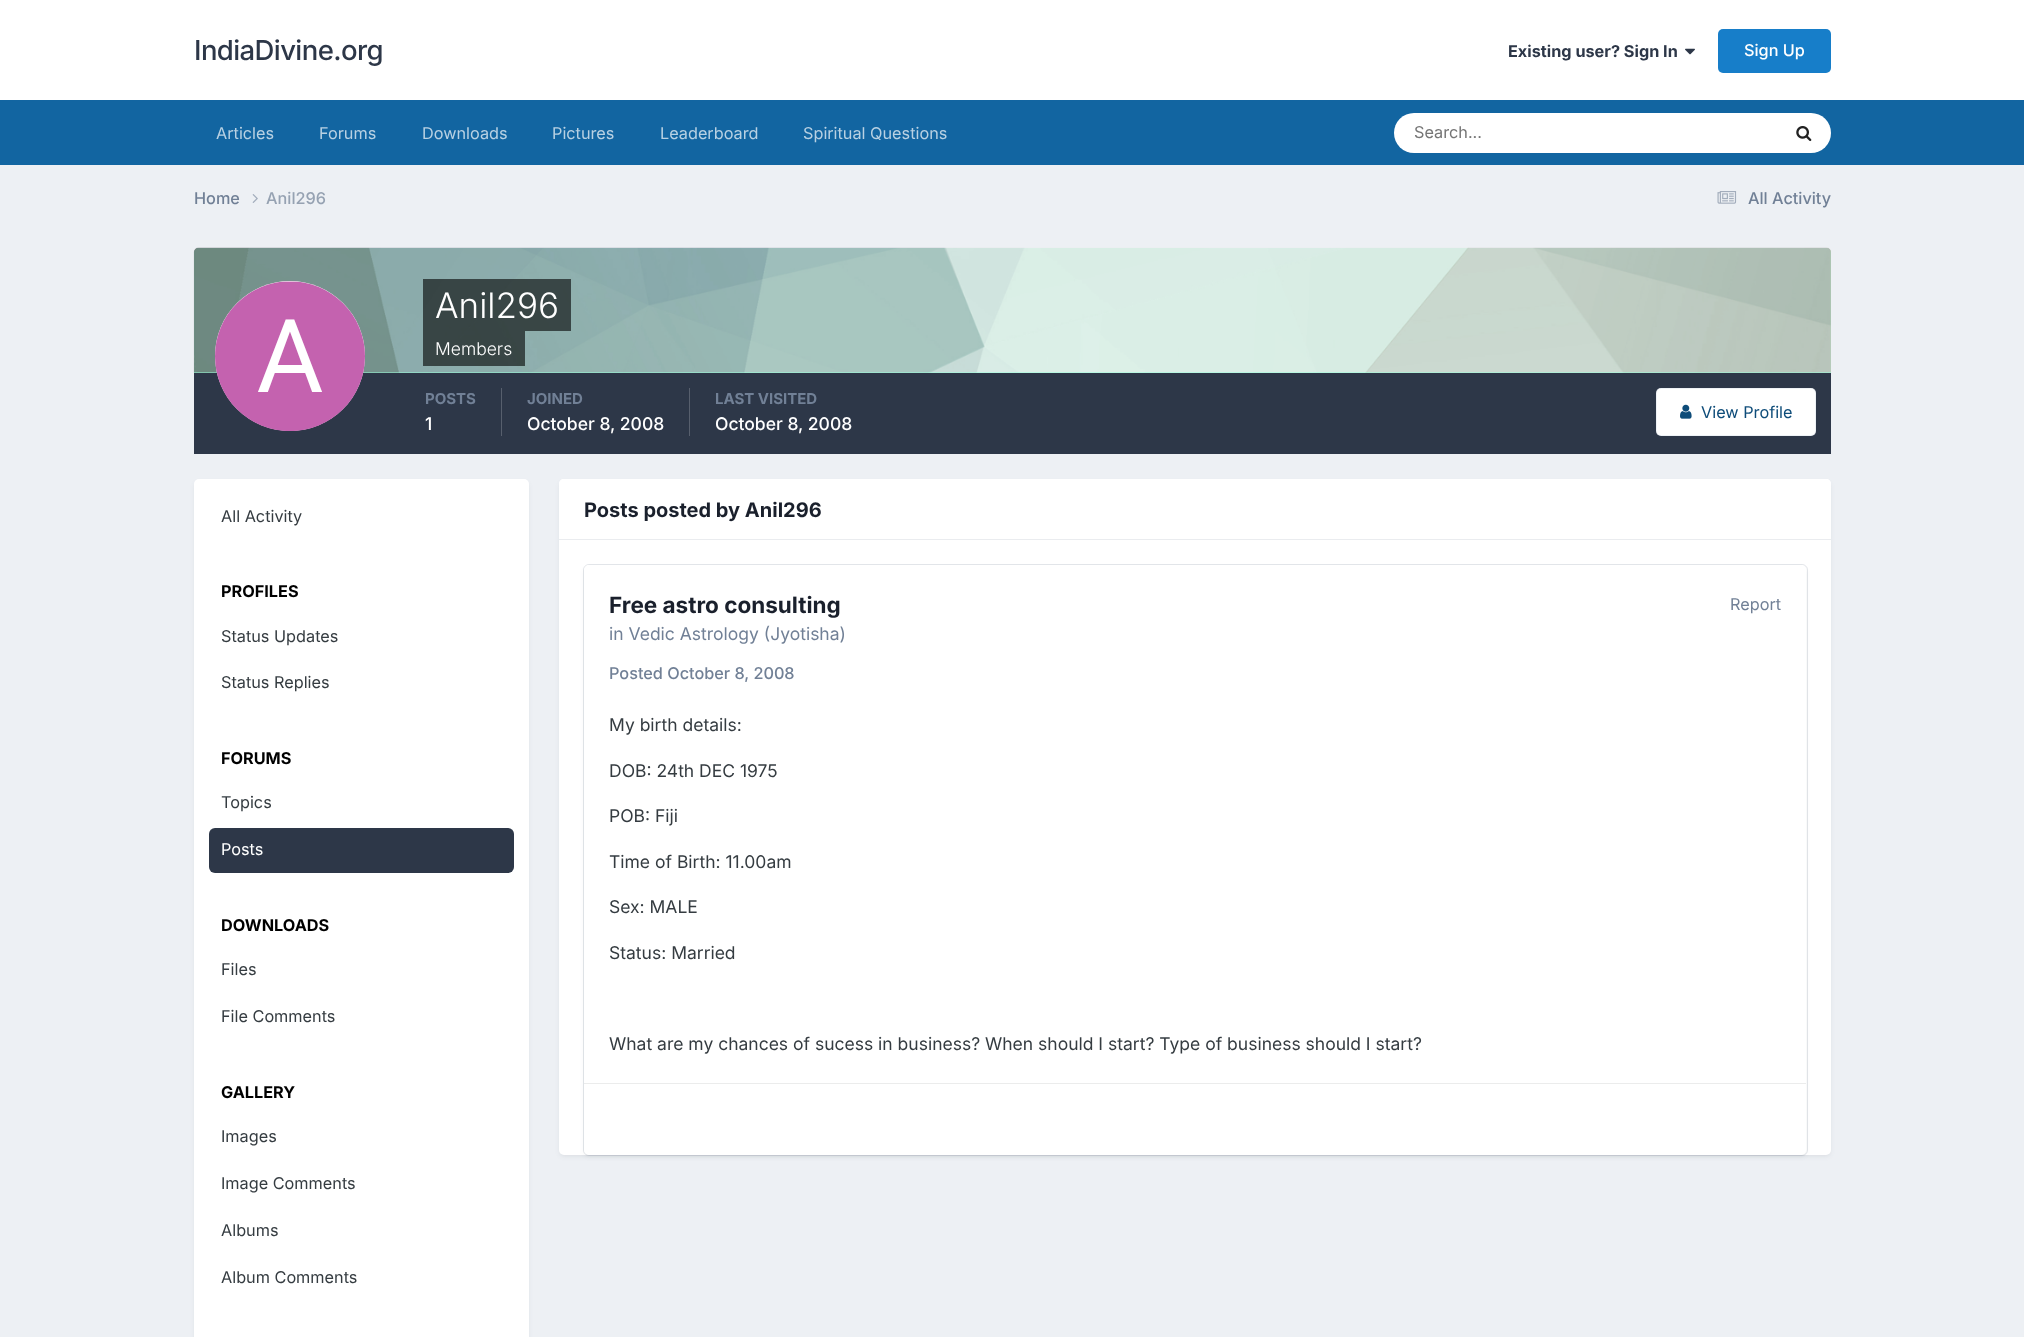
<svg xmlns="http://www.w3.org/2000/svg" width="2024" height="1337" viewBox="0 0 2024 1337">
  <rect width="100%" height="100%" fill="#edf0f4"/>
  <path d="M0 0h2024v100H0z" fill="#fff"/>
  <image x="1685" y="48" width="10" height="7" href="img/1.png"/>
  <rect x="1718" y="29" width="113" height="44" rx="5" fill="#177ec9"/>
  <path d="M0 100h2024v65H0z" fill="#1265a1"/>
  <rect x="1394" y="113" width="437" height="40" rx="20" fill="#fff"/>
  <image x="1796" y="126" width="16" height="16" href="img/2.png"/>
  <image x="252" y="194" width="6" height="9" href="img/3.png"/>
  <image x="1717" y="191" width="20" height="13" href="img/4.png"/>
  <path d="M199 248H1826C1829 248 1831 250 1831 253V373H194V253C194 250 196 248 199 248Z" fill="#99ffdb"/>
  <image x="193" y="247" width="1638" height="126" href="img/5.png"/>
  <path d="M194 373h1637v81H194z" fill="#2d3748"/>
  <circle cx="290" cy="356" r="75" fill="#fff"/>
  <image x="215" y="281" width="150" height="150" href="img/6.png"/>
  <path d="M423 279h148v52H423z" fill="#00000099"/>
  <path d="M423 331h102v35H423z" fill="#00000099"/>
  <path d="M501 388h1v48H501z" fill="#575f6d"/>
  <path d="M689 388h1v48H689z" fill="#575f6d"/>
  <rect x="1656" y="388" width="160" height="48" rx="5" fill="#fff"/>
  <rect x="1656.5" y="388.5" width="159" height="47" rx="4.5" fill="none" stroke="#0e4c7912"/>
  <image x="1680" y="404" width="12" height="15" href="img/7.png"/>
  <rect x="195" y="483" width="333" height="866" rx="4" fill="#2d37481a" filter="blur(2.5px)"/>
  <rect x="194" y="479" width="335" height="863" rx="5" fill="#fff"/>
  <rect x="209" y="828" width="305" height="45" rx="6" fill="#2d3748"/>
  <rect x="560" y="483" width="1270" height="673" rx="4" fill="#2d37481a" filter="blur(2.5px)"/>
  <rect x="559" y="479" width="1272" height="676" rx="5" fill="#fff"/>
  <path d="M564 479H1826C1829 479 1831 481 1831 484V540H559V484C559 481 561 479 564 479Z" fill="#fff"/>
  <path d="M559 539h1272v1H559z" fill="#eaecef"/>
  <rect x="585" y="569" width="1220" height="587" rx="4" fill="#2d37481a" filter="blur(2.5px)"/>
  <rect x="583.5" y="564.5" width="1224" height="591" rx="5.5" fill="none" stroke="#71809633"/>
  <rect x="584" y="565" width="1222" height="590" rx="5" fill="#fff"/>
  <path d="M584 1083h1222v1H584z" fill="#ebecec"/>
  <text x="194" y="60" font-family="Inter" font-size="27.5" font-weight="500" letter-spacing="-0.6" fill="#2d3748">IndiaDivine.org</text>
  <text x="1508" y="57" font-family="Inter" font-size="16.25" font-weight="bold" fill="#2d3748">Existing user? Sign In</text>
  <text x="1744" y="56" font-family="Inter" font-size="16.25" font-weight="500" fill="#fff">Sign Up</text>
  <g font-family="Inter" font-size="16.25" fill="#b8d1e3">
    <text x="216" y="139">Articles</text>
    <text x="319" y="139">Forums</text>
    <text x="422" y="139">Downloads</text>
    <text x="552" y="139">Pictures</text>
    <text x="660" y="139">Leaderboard</text>
    <text x="803" y="139">Spiritual Questions</text>
  </g>
  <text x="1414" y="138" font-family="Inter" font-size="16.25" fill="#757575">Search...</text>
  <text x="194" y="204" font-family="Inter" font-size="16.25" font-weight="500" fill="#718096">Home</text>
  <text x="266" y="204" font-family="Inter" font-size="16.25" font-weight="500" fill="#96a2b2">Anil296</text>
  <text x="1748" y="204" font-family="Inter" font-size="16.25" font-weight="500" fill="#718096">All Activity</text>
  <text x="435" y="318" font-family="Inter" font-size="35" font-weight="300" fill="#fff">Anil296</text>
  <text x="435" y="355" font-family="Inter" font-size="17.5" font-weight="300" fill="#fff">Members</text>
  <text x="425" y="404" font-family="Inter" font-size="15" font-weight="bold" fill="#718096">POSTS</text>
  <text x="425" y="430" font-family="Inter" font-size="17.5" font-weight="500" fill="#fff">1</text>
  <text x="527" y="404" font-family="Inter" font-size="15" font-weight="bold" fill="#718096">JOINED</text>
  <text x="527" y="430" font-family="Inter" font-size="17.5" font-weight="500" fill="#fff">October 8, 2008</text>
  <text x="715" y="404" font-family="Inter" font-size="15" font-weight="bold" fill="#718096">LAST VISITED</text>
  <text x="715" y="430" font-family="Inter" font-size="17.5" font-weight="500" fill="#fff">October 8, 2008</text>
  <text x="1701" y="418" font-family="Inter" font-size="16.25" fill="#0e4c79">View Profile</text>
  <text x="221" y="522" font-family="Inter" font-size="16.25" fill="#353c41">All Activity</text>
  <text x="221" y="597" font-family="Inter" font-size="16.25" font-weight="bold" fill="#000">PROFILES</text>
  <g font-family="Inter" font-size="16.25" fill="#353c41">
    <text x="221" y="642">Status Updates</text>
    <text x="221" y="688">Status Replies</text>
  </g>
  <text x="221" y="764" font-family="Inter" font-size="16.25" font-weight="bold" fill="#000">FORUMS</text>
  <text x="221" y="808" font-family="Inter" font-size="16.25" fill="#353c41">Topics</text>
  <text x="221" y="855" font-family="Inter" font-size="16.25" fill="#fff">Posts</text>
  <text x="221" y="931" font-family="Inter" font-size="16.25" font-weight="bold" fill="#000">DOWNLOADS</text>
  <g font-family="Inter" font-size="16.25" fill="#353c41">
    <text x="221" y="975">Files</text>
    <text x="221" y="1022">File Comments</text>
  </g>
  <text x="221" y="1098" font-family="Inter" font-size="16.25" font-weight="bold" fill="#000">GALLERY</text>
  <g font-family="Inter" font-size="16.25" fill="#353c41">
    <text x="221" y="1142">Images</text>
    <text x="221" y="1189">Image Comments</text>
    <text x="221" y="1236">Albums</text>
    <text x="221" y="1283">Album Comments</text>
  </g>
  <text x="584" y="517" font-family="Inter" font-size="20" font-weight="bold" fill="#1a202c">Posts posted by Anil296</text>
  <text x="609" y="613" font-family="Inter" font-size="22.5" font-weight="bold" fill="#1a202c">Free astro consulting</text>
  <text x="609" y="640" font-family="Inter" font-size="17.5" fill="#718096">in Vedic Astrology (Jyotisha)</text>
  <text x="1730" y="610" font-family="Inter" font-size="16.25" fill="#718096">Report</text>
  <text x="609" y="679" font-family="Inter" font-size="16.25" font-weight="500" fill="#718096">Posted October 8, 2008</text>
  <g font-family="Inter" font-size="17.5" fill="#353c41">
    <text x="609" y="731">My birth details:</text>
    <text x="609" y="777">DOB: 24th DEC 1975</text>
    <text x="609" y="822">POB: Fiji</text>
    <text x="609" y="868">Time of Birth: 11.00am</text>
    <text x="609" y="913">Sex: MALE</text>
    <text x="609" y="959">Status: Married</text>
    <text x="609" y="1050">What are my chances of sucess in business? When should I start? Type of business should I start?</text>
  </g>
</svg>
